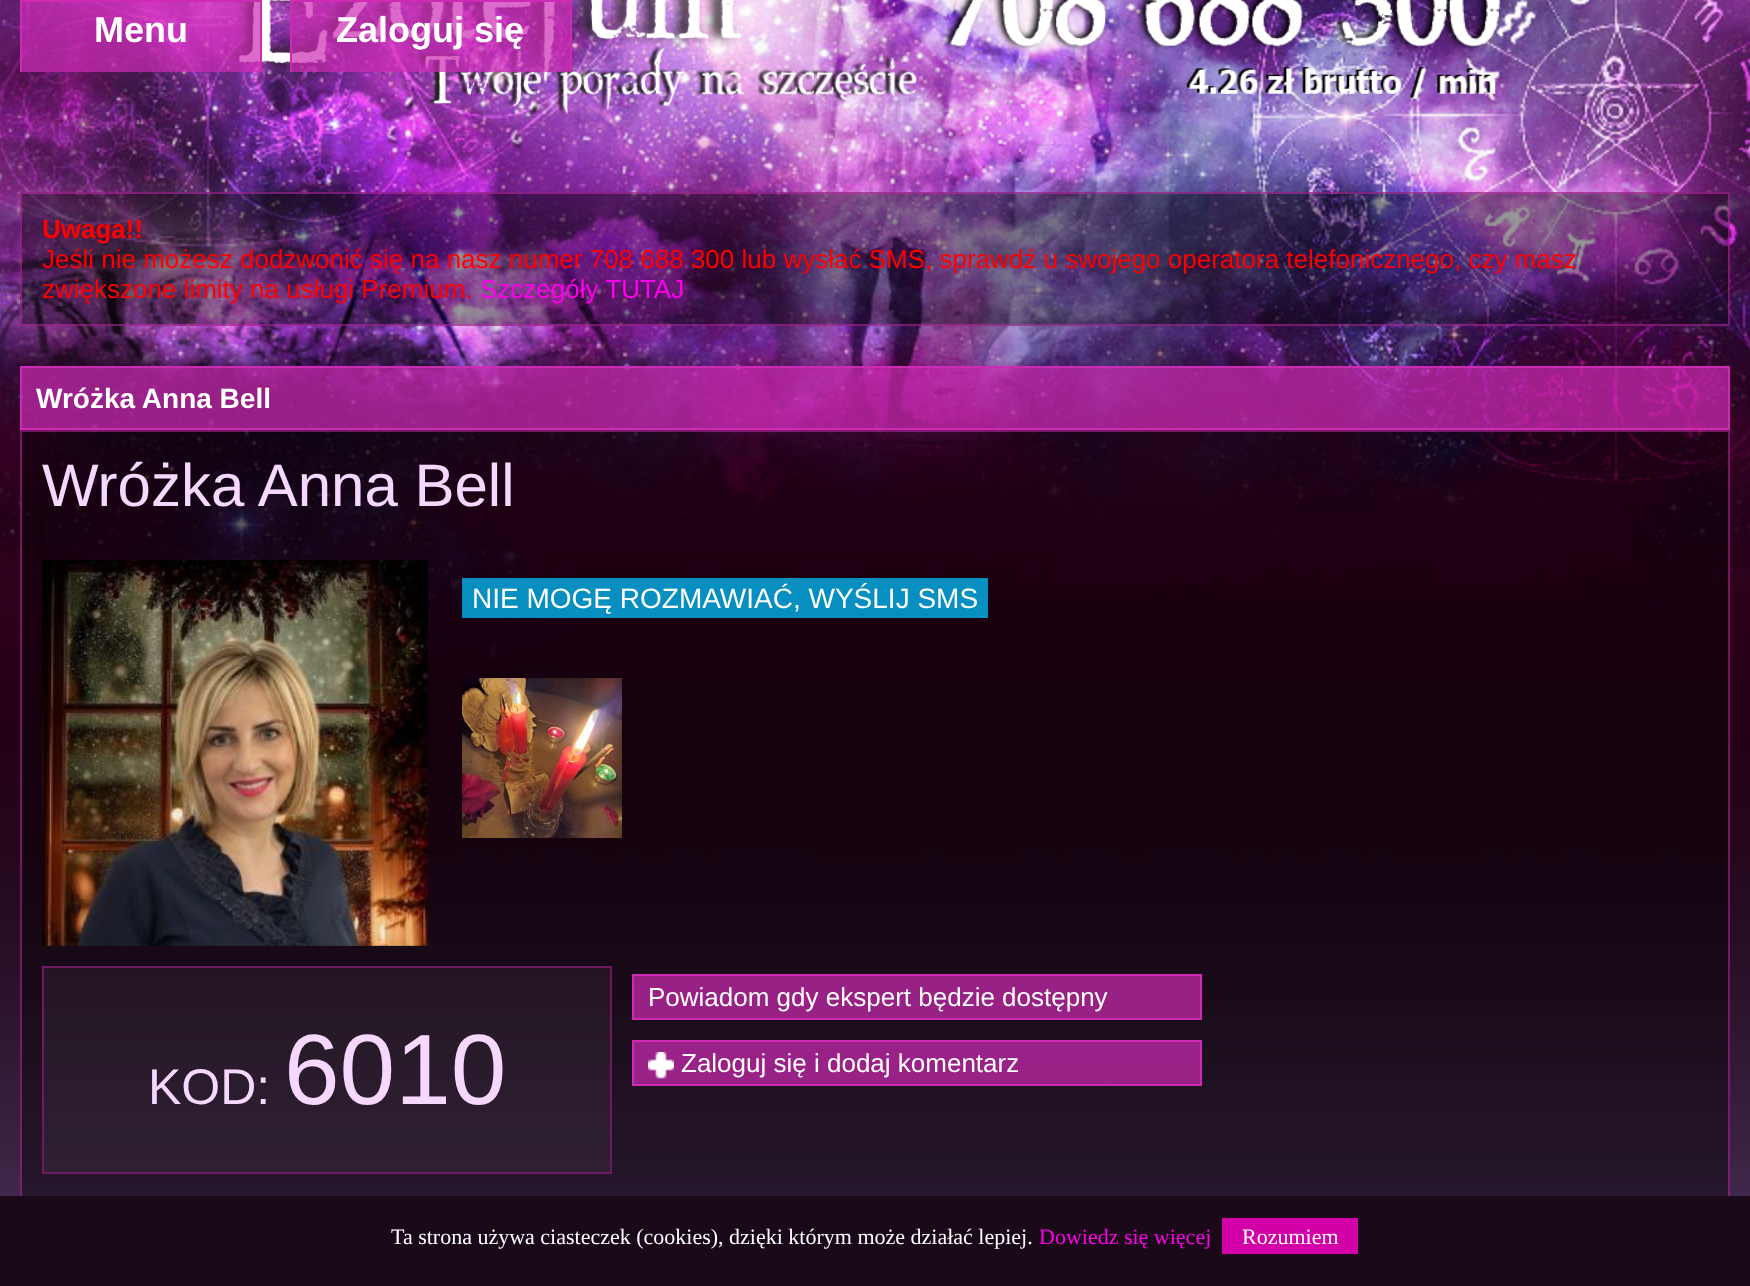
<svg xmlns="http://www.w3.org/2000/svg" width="1750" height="1286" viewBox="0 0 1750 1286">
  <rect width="100%" height="100%" fill="#fff"/>
  <image x="0" y="0" width="1750" height="1196" href="img/1.png"/>
  <image x="222" y="0" width="695" height="114" href="img/2.png"/>
  <path d="M22 2h238v70H22z" fill="#cd2bb4b3"/>
  <path d="M20 0h242v2H20z" fill="#cd2bb4"/>
  <path d="M260 0h2v72H260z" fill="#cd2bb4"/>
  <path d="M20 0h2v72H20z" fill="#cd2bb4"/>
  <path d="M292 2h278v70H292z" fill="#cd2bb4b3"/>
  <path d="M290 0h282v2H290z" fill="#cd2bb4"/>
  <path d="M570 0h2v72H570z" fill="#cd2bb4"/>
  <path d="M290 0h2v72H290z" fill="#cd2bb4"/>
  <image x="942" y="0" width="560" height="99" href="img/3.png"/>
  <path d="M20 192h1710v134H20z" fill="#00000066"/>
  <path d="M21 193h1708v132H21z" fill="none" stroke="#cd2bb480" stroke-width="2"/>
  <path d="M21 367h1708v62H21z" fill="#cd2bb4b3" stroke="#cd2bb4" stroke-width="2"/>
  <path d="M20 430h1710v766H20z" fill="#00000066"/>
  <path d="M21 431h1708v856H21z" fill="none" stroke="#cd2bb480" stroke-width="2"/>
  <image x="42" y="560" width="386" height="386" href="img/4.png"/>
  <path d="M462 578h526v40H462z" fill="#088fc1"/>
  <image x="462" y="678" width="160" height="160" href="img/5.png"/>
  <path d="M43 967h568v206H43z" fill="#ffffff0d" stroke="#721761" stroke-width="2"/>
  <path d="M633 975h568v44H633z" fill="#cd2bb4b3" stroke="#cd2bb4" stroke-width="2"/>
  <path d="M633 1041h568v44H633z" fill="#cd2bb4b3" stroke="#cd2bb4" stroke-width="2"/>
  <image x="648" y="1052" width="26" height="27" href="img/6.png"/>
  <path d="M0 1196h1750v90H0z" fill="#1a0919"/>
  <path d="M1222 1218h136v36H1222z" fill="#d200a6"/>
  <g font-family="Liberation Sans" font-size="36" font-weight="bold" fill="#fff">
    <text x="94" y="42">Menu</text>
    <text x="336" y="42">Zaloguj się</text>
  </g>
  <text x="42" y="238" font-family="Liberation Sans" font-size="26" font-weight="bold" fill="#f00">Uwaga!!</text>
  <g font-family="Liberation Sans" font-size="26" fill="#f00">
    <text x="42" y="268">Jeśli nie możesz dodzwonić się na nasz numer 708 688 300 lub wysłać SMS, sprawdź u swojego operatora telefonicznego, czy masz</text>
    <text x="42" y="298">zwiększone limity na usługi Premium.</text>
  </g>
  <text x="480" y="298" font-family="Liberation Sans" font-size="26" fill="#ff00ea">Szczegóły TUTAJ</text>
  <text x="36" y="408" font-family="Liberation Sans" font-size="28" font-weight="bold" fill="#fff">Wróżka Anna Bell</text>
  <text x="42" y="506" font-family="Liberation Sans" font-size="60" fill="#f6d8ff">Wróżka Anna Bell</text>
  <text x="472" y="608" font-family="Liberation Sans" font-size="28" fill="#fff">NIE MOGĘ ROZMAWIAĆ, WYŚLIJ SMS</text>
  <text x="148" y="1104" font-family="Liberation Sans" font-size="50" fill="#f6d8ff">KOD:</text>
  <text x="284" y="1104" font-family="Liberation Sans" font-size="100" fill="#f6d8ff">6010</text>
  <g font-family="Liberation Sans" font-size="26" fill="#fff">
    <text x="648" y="1006">Powiadom gdy ekspert będzie dostępny</text>
    <text x="681" y="1072">Zaloguj się i dodaj komentarz</text>
  </g>
  <text x="391" y="1244" font-family="Liberation Serif" font-size="22" fill="#fff">Ta strona używa ciasteczek (cookies), dzięki którym może działać lepiej.</text>
  <text x="1039" y="1244" font-family="Liberation Serif" font-size="22" fill="#ff00ea">Dowiedz się więcej</text>
  <text x="1242" y="1244" font-family="Liberation Serif" font-size="22" fill="#fff">Rozumiem</text>
</svg>
